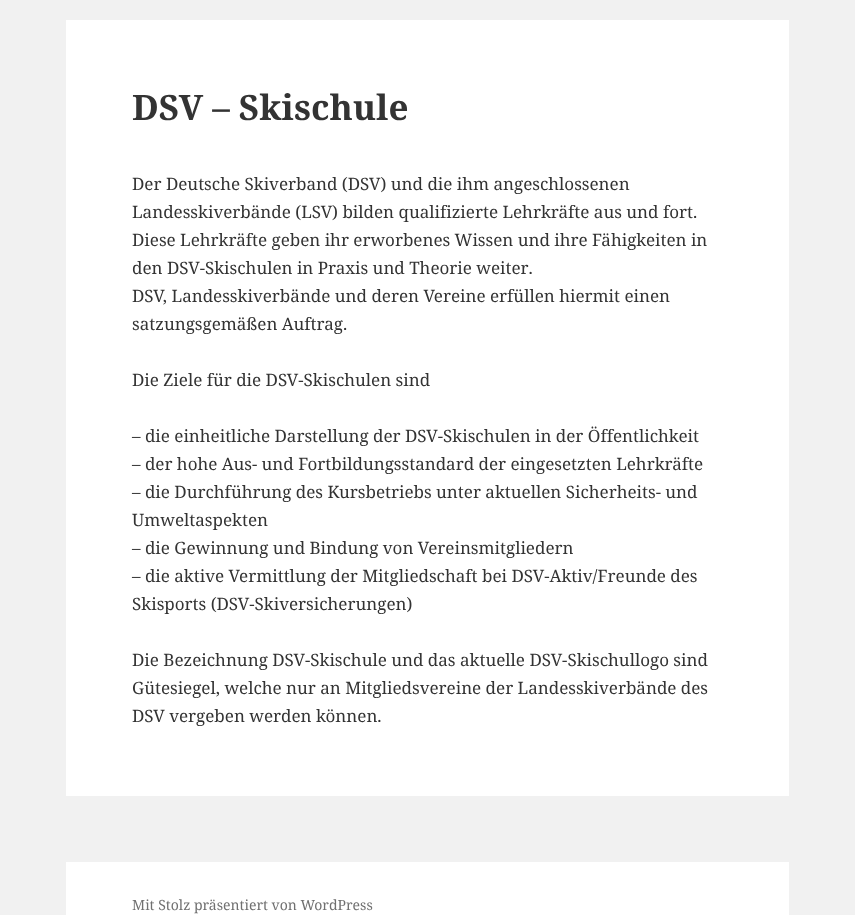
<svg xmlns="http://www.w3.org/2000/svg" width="855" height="915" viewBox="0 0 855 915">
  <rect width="100%" height="100%" fill="#f1f1f1"/>
  <path d="M66 20h723v776H66z" fill="#fff"/>
  <path d="M66 862h723v53H66z" fill="#fff"/>
  <text x="132" y="120" font-family="Noto Serif" font-size="35" font-weight="bold" fill="#333">DSV – Skischule</text>
  <g font-family="Noto Serif" font-size="17" fill="#333">
    <text x="132" y="190">Der Deutsche Skiverband (DSV) und die ihm angeschlossenen</text>
    <text x="132" y="218">Landesskiverbände (LSV) bilden qualifizierte Lehrkräfte aus und fort.</text>
    <text x="132" y="246">Diese Lehrkräfte geben ihr erworbenes Wissen und ihre Fähigkeiten in</text>
    <text x="132" y="274">den DSV-Skischulen in Praxis und Theorie weiter.</text>
    <text x="132" y="302">DSV, Landesskiverbände und deren Vereine erfüllen hiermit einen</text>
    <text x="132" y="330">satzungsgemäßen Auftrag.</text>
    <text x="132" y="386">Die Ziele für die DSV-Skischulen sind</text>
    <text x="132" y="442">– die einheitliche Darstellung der DSV-Skischulen in der Öffentlichkeit</text>
    <text x="132" y="470">– der hohe Aus- und Fortbildungsstandard der eingesetzten Lehrkräfte</text>
    <text x="132" y="498">– die Durchführung des Kursbetriebs unter aktuellen Sicherheits- und</text>
    <text x="132" y="526">Umweltaspekten</text>
    <text x="132" y="554">– die Gewinnung und Bindung von Vereinsmitgliedern</text>
    <text x="132" y="582">– die aktive Vermittlung der Mitgliedschaft bei DSV-Aktiv/Freunde des</text>
    <text x="132" y="610">Skisports (DSV-Skiversicherungen)</text>
    <text x="132" y="666">Die Bezeichnung DSV-Skischule und das aktuelle DSV-Skischullogo sind</text>
    <text x="132" y="694">Gütesiegel, welche nur an Mitgliedsvereine der Landesskiverbände des</text>
    <text x="132" y="722">DSV vergeben werden können.</text>
  </g>
  <text x="132" y="910" font-family="Noto Serif" font-size="14" fill="#707070">Mit Stolz präsentiert von WordPress</text>
</svg>
